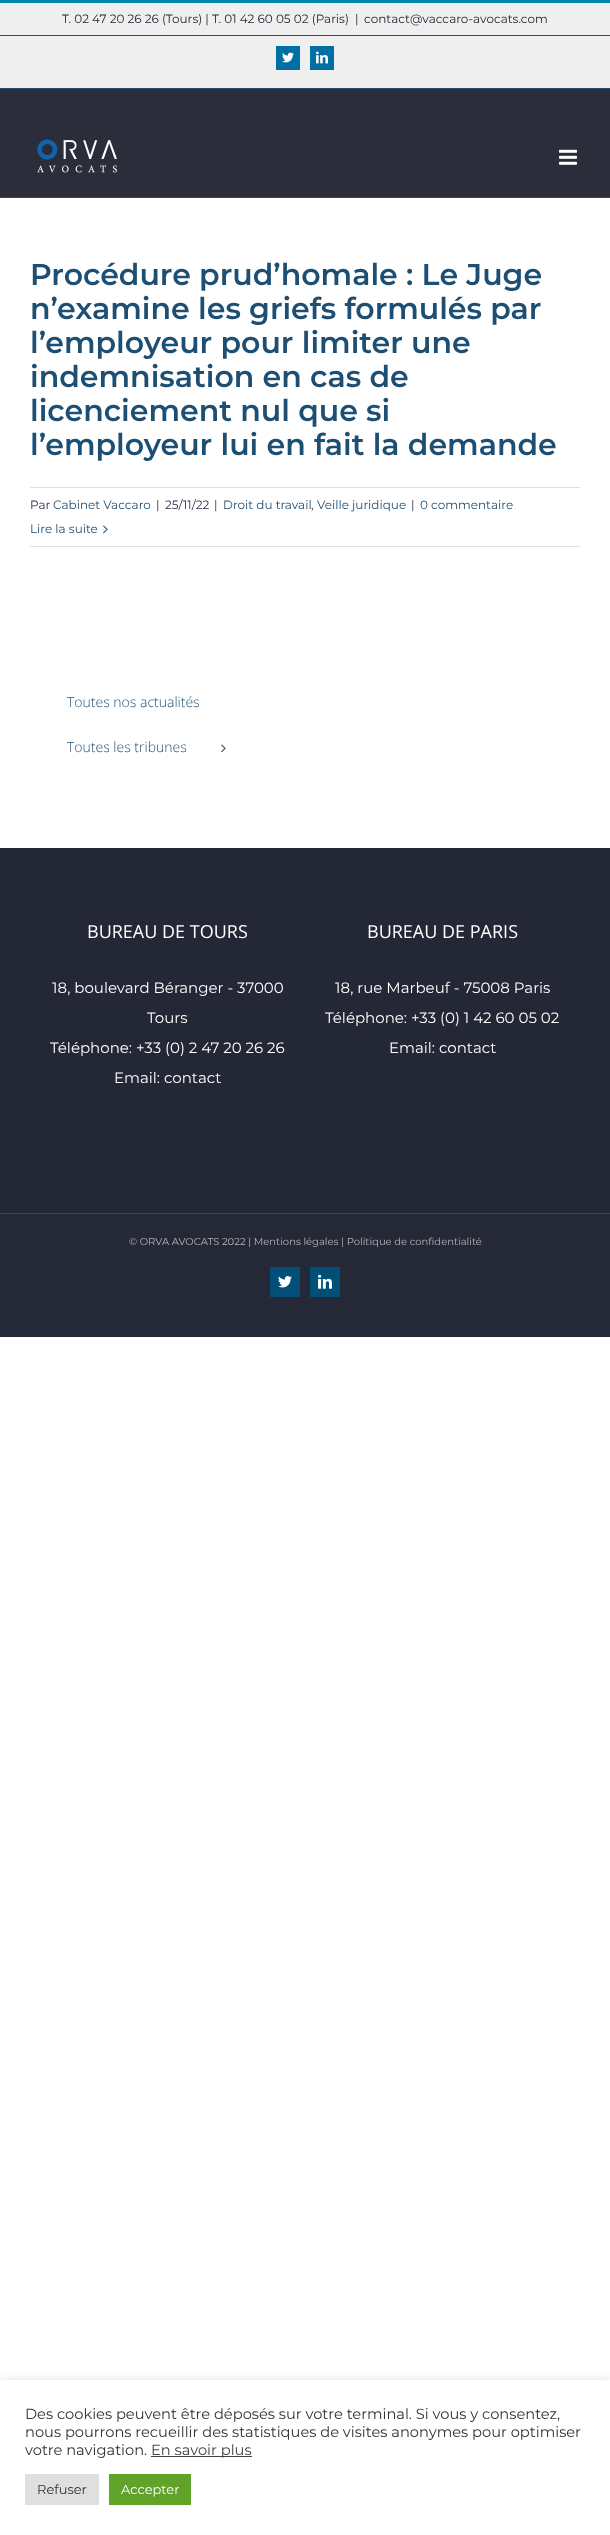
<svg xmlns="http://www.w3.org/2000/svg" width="610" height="2535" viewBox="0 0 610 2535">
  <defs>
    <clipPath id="clip1"><path d="M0 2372h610v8H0z"/></clipPath>
  </defs>
  <rect width="100%" height="100%" fill="#fff"/>
  <path d="M0 3h610v85H0z" fill="#efefef"/>
  <path d="M0 0h610v3H0z" fill="#0387ac"/>
  <path d="M0 88h610v1H0z" fill="#1d4f74"/>
  <path d="M0 35h610v1H0z" fill="#1d4f74"/>
  <path d="M276 46h24v24H276z" fill="#006fa3"/>
  <image x="282" y="52" width="12" height="11" href="img/1.png"/>
  <path d="M310 46h24v24H310z" fill="#006fa3"/>
  <image x="316" y="51" width="12" height="13" href="img/2.png"/>
  <path d="M0 89h610v108H0z" fill="#2b2e3a"/>
  <path d="M0 197h610v1H0z" fill="#1d4f74"/>
  <image x="37" y="139" width="80" height="34" href="img/3.png"/>
  <image x="559" y="149" width="18" height="16" href="img/4.png"/>
  <path d="M30 487h550v1H30z" fill="#e0dede"/>
  <path d="M30 546h550v1H30z" fill="#e0dede"/>
  <image x="103" y="525" width="5" height="9" href="img/5.png"/>
  <image x="221" y="744" width="5" height="9" href="img/5.png"/>
  <path d="M0 848h610v365H0z" fill="#242736"/>
  <path d="M0 1214h610v123H0z" fill="#252837"/>
  <path d="M0 1213h610v1H0z" fill="#1d4f74"/>
  <path d="M270 1267h30v30H270z" fill="#004f77"/>
  <image x="278" y="1276" width="14" height="12" href="img/6.png"/>
  <path d="M310 1267h30v30H310z" fill="#004f77"/>
  <image x="318" y="1274" width="14" height="15" href="img/7.png"/>
  <g clip-path="url(#clip1)">
    <path d="M0 2379h610v155H0z" fill="#acabab4d" filter="blur(5px)"/>
  </g>
  <path d="M151 2456h101v1H151z" fill="#444"/>
  <path d="M25 2474h74v31H25z" fill="#dedfe0"/>
  <path d="M109 2474h82v31H109z" fill="#61a229"/>
  <g font-family="Montserrat" font-size="12" fill="#242736">
    <text x="62" y="23">T. 02 47 20 26 26 (Tours) | T. 01 42 60 05 02 (Paris)</text>
    <text x="355" y="23">|</text>
    <text x="364" y="23">contact@vaccaro-avocats.com</text>
  </g>
  <g font-family="Montserrat" font-size="30" font-weight="600" fill="#1d4f74">
    <text x="30" y="285">Procédure prud’homale : Le Juge</text>
    <text x="30" y="319">n’examine les griefs formulés par</text>
    <text x="30" y="353">l’employeur pour limiter une</text>
    <text x="30" y="387">indemnisation en cas de</text>
    <text x="30" y="421">licenciement nul que si</text>
    <text x="30" y="455">l’employeur lui en fait la demande</text>
  </g>
  <text x="30" y="509" font-family="Montserrat" font-size="12" fill="#2a2e45">Par</text>
  <text x="53" y="509" font-family="Montserrat" font-size="12" fill="#1d4f74">Cabinet Vaccaro</text>
  <g font-family="Montserrat" font-size="12" fill="#2a2e45">
    <text x="156" y="509">|</text>
    <text x="165" y="509">25/11/22</text>
    <text x="214" y="509">|</text>
  </g>
  <text x="223" y="509" font-family="Montserrat" font-size="12" fill="#1d4f74">Droit du travail</text>
  <text x="311" y="509" font-family="Montserrat" font-size="12" fill="#2a2e45">,</text>
  <text x="317" y="509" font-family="Montserrat" font-size="12" fill="#1d4f74">Veille juridique</text>
  <text x="411" y="509" font-family="Montserrat" font-size="12" fill="#2a2e45">|</text>
  <g font-family="Montserrat" font-size="12" fill="#1d4f74">
    <text x="420" y="509">0 commentaire</text>
    <text x="30" y="533">Lire la suite</text>
  </g>
  <g font-family="Open Sans" font-size="14" font-weight="300" fill="#1d4f74">
    <text x="67" y="707">Toutes nos actualités</text>
    <text x="67" y="752">Toutes les tribunes</text>
  </g>
  <text x="87" y="938" font-family="Open Sans" font-size="18" fill="#fff">BUREAU DE TOURS</text>
  <g font-family="Montserrat" font-size="15" fill="#fff">
    <text x="52" y="993">18, boulevard Béranger - 37000</text>
    <text x="147" y="1023">Tours</text>
    <text x="50" y="1053">Téléphone: +33 (0) 2 47 20 26 26</text>
    <text x="114" y="1083">Email: contact</text>
  </g>
  <text x="367" y="938" font-family="Open Sans" font-size="18" fill="#fff">BUREAU DE PARIS</text>
  <g font-family="Montserrat" font-size="15" fill="#fff">
    <text x="335" y="993">18, rue Marbeuf - 75008 Paris</text>
    <text x="325" y="1023">Téléphone: +33 (0) 1 42 60 05 02</text>
    <text x="389" y="1053">Email: contact</text>
  </g>
  <text x="129" y="1245" font-family="Montserrat" font-size="10" fill="#b7b7b7">© ORVA AVOCATS 2022 | Mentions légales | Politique de confidentialité</text>
  <g font-family="Montserrat" font-size="14.65" fill="#333">
    <text x="25" y="2419">Des cookies peuvent être déposés sur votre terminal. Si vous y consentez,</text>
    <text x="25" y="2437">nous pourrons recueillir des statistiques de visites anonymes pour optimiser</text>
    <text x="25" y="2455">votre navigation.</text>
  </g>
  <text x="151" y="2455" font-family="Montserrat" font-size="14.65" fill="#444">En savoir plus</text>
  <text x="37" y="2494" font-family="Montserrat" font-size="13" fill="#333">Refuser</text>
  <text x="121" y="2494" font-family="Montserrat" font-size="13" fill="#fff">Accepter</text>
</svg>
